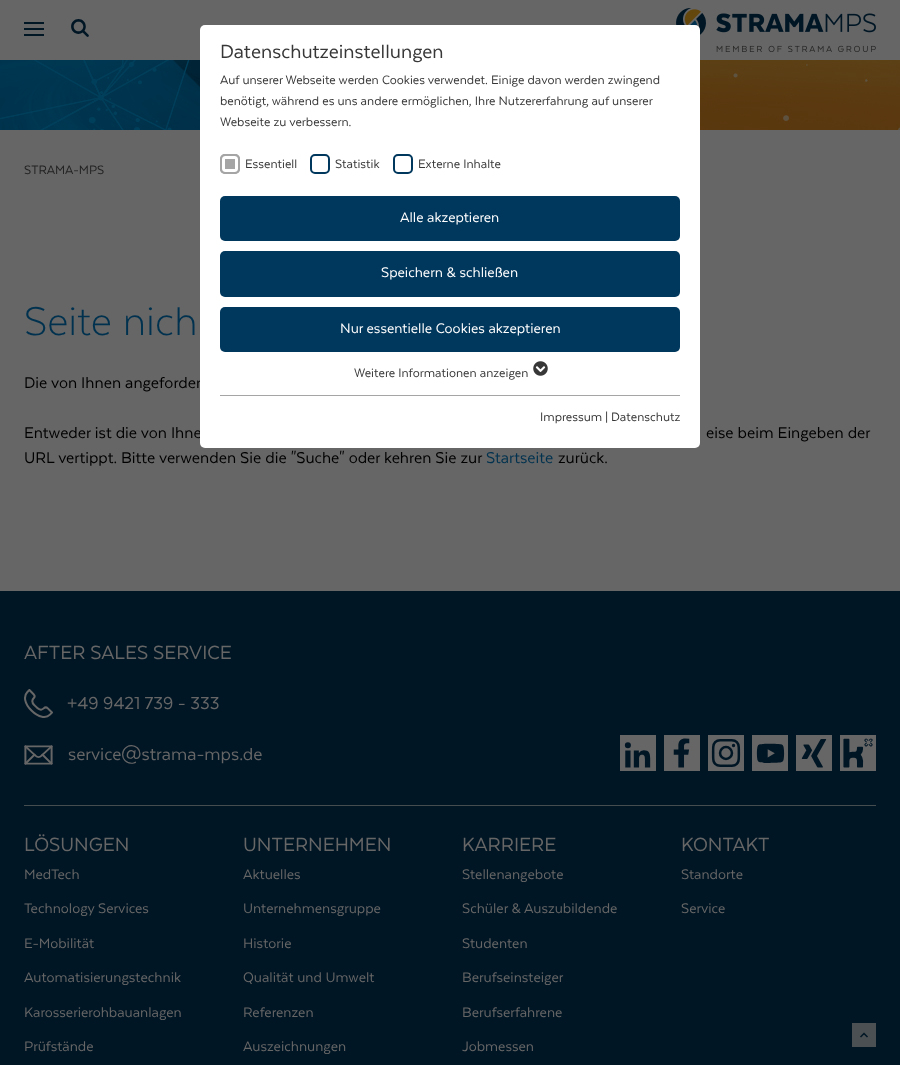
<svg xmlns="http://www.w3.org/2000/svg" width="900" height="1065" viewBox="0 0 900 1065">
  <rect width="100%" height="100%" fill="#666"/>
  <image x="24" y="22" width="20" height="14" href="img/2.png"/>
  <image x="71" y="19" width="18" height="18" href="img/3.png"/>
  <image x="676" y="8" width="200" height="44" href="img/4.png"/>
  <image x="0" y="60" width="900" height="70" href="img/5.png"/>
  <path d="M0 591h900v474H0z" fill="#001625"/>
  <image x="24" y="689" width="29" height="29" href="img/6.png"/>
  <image x="24" y="745" width="29" height="20" href="img/7.png"/>
  <image x="620" y="735" width="36" height="36" href="img/8.png"/>
  <image x="664" y="735" width="36" height="36" href="img/9.png"/>
  <image x="708" y="735" width="36" height="36" href="img/10.png"/>
  <image x="752" y="735" width="36" height="36" href="img/11.png"/>
  <image x="796" y="735" width="36" height="36" href="img/12.png"/>
  <image x="840" y="735" width="36" height="36" href="img/13.png"/>
  <path d="M24 805h852v1H24z" fill="#464d4e"/>
  <image x="852" y="1023" width="24" height="24" href="img/14.png"/>
  <text x="24" y="174" font-family="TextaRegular" font-size="14" fill="#222">STRAMA-MPS</text>
  <text x="24" y="335" font-family="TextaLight" font-size="46" fill="#00324f">Seite nich</text>
  <g font-family="TextaRegular" font-size="18" fill="#000">
    <text x="24" y="388">Die von Ihnen angeforder</text>
    <text x="24" y="438">Entweder ist die von Ihne</text>
  </g>
  <rect x="200" y="25" width="500" height="423" rx="5" fill="#fff"/>
  <image x="533" y="361" width="15" height="15" href="img/1.png"/>
  <rect x="394" y="155" width="18" height="18" rx="4" fill="none" stroke="#00375c" stroke-width="2"/>
  <rect x="311" y="155" width="18" height="18" rx="4" fill="none" stroke="#00375c" stroke-width="2"/>
  <rect x="220" y="154" width="20" height="20" rx="5" fill="#a5a5a5"/>
  <rect x="223.5" y="157.5" width="13" height="13" rx="1.5" fill="none" stroke="#fff" stroke-width="3"/>
  <rect x="221" y="155" width="18" height="18" rx="4" fill="none" stroke="#a5a5a5" stroke-width="2"/>
  <text x="354" y="377" font-family="TextaRegular" font-size="14" fill="#373737">Weitere Informationen anzeigen</text>
  <rect x="220" y="307" width="460" height="45" rx="5" fill="#00375c"/>
  <text x="340" y="333" font-family="TextaRegular" font-size="16" fill="#fff">Nur essentielle Cookies akzeptieren</text>
  <rect x="220" y="251" width="460" height="46" rx="5" fill="#00375c"/>
  <text x="381" y="277" font-family="TextaRegular" font-size="16" fill="#fff">Speichern &amp; schließen</text>
  <rect x="220" y="196" width="460" height="45" rx="5" fill="#00375c"/>
  <text x="400" y="222" font-family="TextaRegular" font-size="16" fill="#fff">Alle akzeptieren</text>
  <g font-family="TextaRegular" font-size="14" fill="#373737">
    <text x="418" y="168">Externe Inhalte</text>
    <text x="335" y="168">Statistik</text>
    <text x="245" y="168">Essentiell</text>
    <text x="220" y="126">Webseite zu verbessern.</text>
    <text x="220" y="105">benötigt, während es uns andere ermöglichen, Ihre Nutzererfahrung auf unserer</text>
    <text x="220" y="84">Auf unserer Webseite werden Cookies verwendet. Einige davon werden zwingend</text>
  </g>
  <text x="220" y="58" font-family="TextaRegular" font-size="22" fill="#373737">Datenschutzeinstellungen</text>
  <text x="540" y="421" font-family="TextaRegular" font-size="14" fill="#373737">Impressum | Datenschutz</text>
  <path d="M220 395h460v1H220z" fill="#a5a5a5"/>
  <g font-family="TextaRegular" font-size="18" fill="#000">
    <text x="706" y="438">eise beim Eingeben der</text>
    <text x="24" y="463">URL vertippt. Bitte verwenden Sie die "Suche" oder kehren Sie zur</text>
  </g>
  <text x="486" y="463" font-family="TextaRegular" font-size="18" fill="#00324f">Startseite</text>
  <text x="558" y="463" font-family="TextaRegular" font-size="18" fill="#000">zurück.</text>
  <text x="24" y="659" font-family="TextaRegular" font-size="22" fill="#666">AFTER SALES SERVICE</text>
  <g font-family="TextaRegular" font-size="20" fill="#666">
    <text x="67" y="709">+49 9421 739 - 333</text>
    <text x="68" y="760">service@strama-mps.de</text>
  </g>
  <text x="24" y="851" font-family="TextaRegular" font-size="22" fill="#666">LÖSUNGEN</text>
  <g font-family="TextaRegular" font-size="16" fill="#666">
    <text x="24" y="879">MedTech</text>
    <text x="24" y="913">Technology Services</text>
    <text x="24" y="948">E-Mobilität</text>
    <text x="24" y="982">Automatisierungstechnik</text>
    <text x="24" y="1017">Karosserierohbauanlagen</text>
    <text x="24" y="1051">Prüfstände</text>
  </g>
  <text x="243" y="851" font-family="TextaRegular" font-size="22" fill="#666">UNTERNEHMEN</text>
  <g font-family="TextaRegular" font-size="16" fill="#666">
    <text x="243" y="879">Aktuelles</text>
    <text x="243" y="913">Unternehmensgruppe</text>
    <text x="243" y="948">Historie</text>
    <text x="243" y="982">Qualität und Umwelt</text>
    <text x="243" y="1017">Referenzen</text>
    <text x="243" y="1051">Auszeichnungen</text>
  </g>
  <text x="462" y="851" font-family="TextaRegular" font-size="22" fill="#666">KARRIERE</text>
  <g font-family="TextaRegular" font-size="16" fill="#666">
    <text x="462" y="879">Stellenangebote</text>
    <text x="462" y="913">Schüler &amp; Auszubildende</text>
    <text x="462" y="948">Studenten</text>
    <text x="462" y="982">Berufseinsteiger</text>
    <text x="462" y="1017">Berufserfahrene</text>
    <text x="462" y="1051">Jobmessen</text>
  </g>
  <text x="681" y="851" font-family="TextaRegular" font-size="22" fill="#666">KONTAKT</text>
  <g font-family="TextaRegular" font-size="16" fill="#666">
    <text x="681" y="879">Standorte</text>
    <text x="681" y="913">Service</text>
  </g>
</svg>
